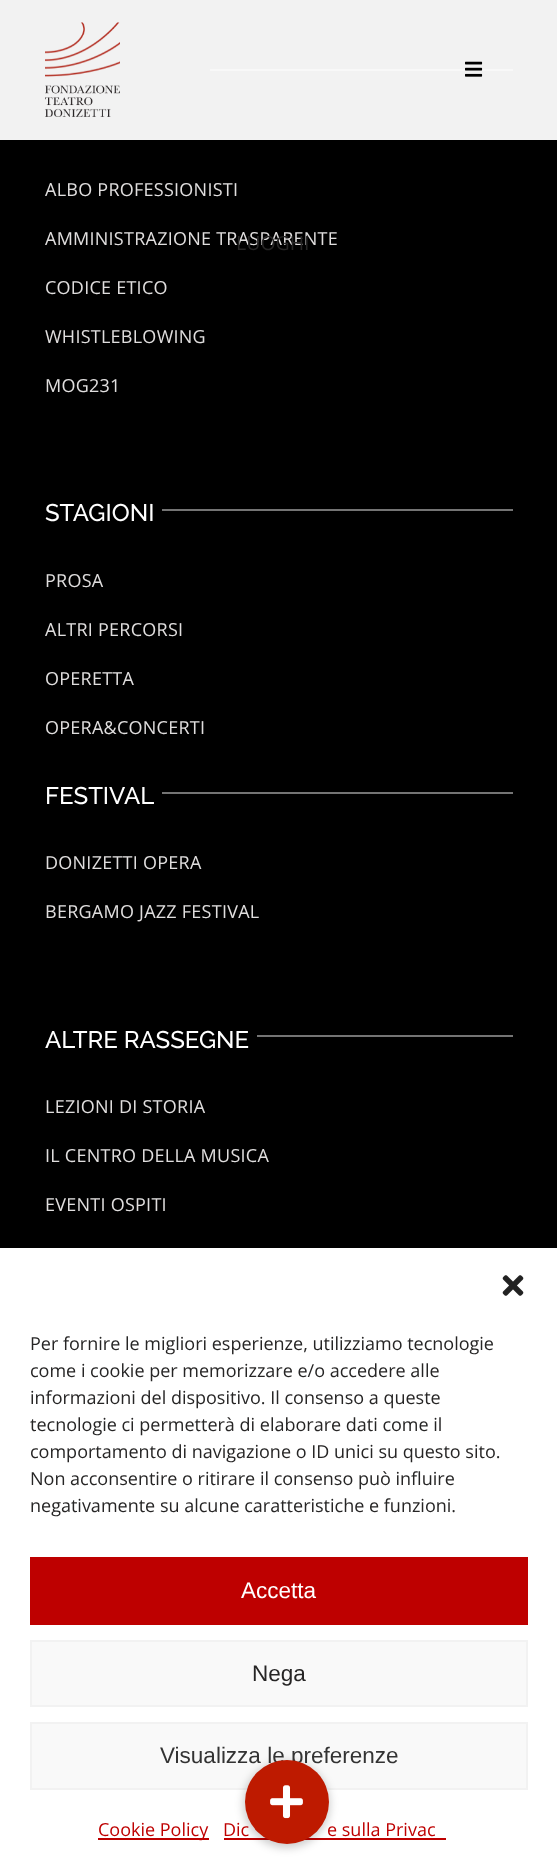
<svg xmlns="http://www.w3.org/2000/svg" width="557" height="1872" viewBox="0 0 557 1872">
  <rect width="100%" height="100%" fill="#000"/>
  <path d="M210 69h303v2H210z" fill="#747474"/>
  <path d="M162 509h351v2H162z" fill="#747474"/>
  <path d="M162 792h351v2H162z" fill="#747474"/>
  <path d="M257 1035h256v2H257z" fill="#747474"/>
  <path d="M0 0h557v140H0z" fill="#fffffff2"/>
  <image x="45" y="22" width="75" height="95" href="img/1.png"/>
  <image x="465" y="61" width="18" height="16" href="img/2.png"/>
  <path d="M0 1248h557v624H0z" fill="#fff"/>
  <image x="502" y="1275" width="22" height="21" href="img/3.png"/>
  <path d="M30 1557h498v68H30z" fill="#be0000"/>
  <path d="M31 1641h496v65H31z" fill="#f9f9f9" stroke="#f2f2f2" stroke-width="2"/>
  <path d="M31 1723h496v66H31z" fill="#f9f9f9" stroke="#f2f2f2" stroke-width="2"/>
  <path d="M98 1838h111v2H98z" fill="#be0000"/>
  <path d="M224 1838h222v2H224z" fill="#be0000"/>
  <rect x="243" y="1761" width="87" height="87" rx="43.5" fill="#00000033" filter="blur(4.5px)"/>
  <g font-family="Open Sans" font-size="18" letter-spacing="0.25" fill="#e0dede">
    <text x="45" y="196">ALBO PROFESSIONISTI</text>
    <text x="45" y="245">AMMINISTRAZIONE TRASPARENTE</text>
    <text x="45" y="294">CODICE ETICO</text>
    <text x="45" y="343">WHISTLEBLOWING</text>
    <text x="45" y="392">MOG231</text>
  </g>
  <text x="45" y="521" font-family="Raleway" font-size="24" font-weight="500" fill="#fff">STAGIONI</text>
  <g font-family="Open Sans" font-size="18" letter-spacing="0.25" fill="#e0dede">
    <text x="45" y="587">PROSA</text>
    <text x="45" y="636">ALTRI PERCORSI</text>
    <text x="45" y="685">OPERETTA</text>
    <text x="45" y="734">OPERA&amp;CONCERTI</text>
  </g>
  <text x="45" y="804" font-family="Raleway" font-size="24" font-weight="500" fill="#fff">FESTIVAL</text>
  <g font-family="Open Sans" font-size="18" letter-spacing="0.25" fill="#e0dede">
    <text x="45" y="869">DONIZETTI OPERA</text>
    <text x="45" y="918">BERGAMO JAZZ FESTIVAL</text>
  </g>
  <text x="45" y="1048" font-family="Raleway" font-size="24" font-weight="500" fill="#fff">ALTRE RASSEGNE</text>
  <g font-family="Open Sans" font-size="18" letter-spacing="0.25" fill="#e0dede">
    <text x="45" y="1113">LEZIONI DI STORIA</text>
    <text x="45" y="1162">IL CENTRO DELLA MUSICA</text>
    <text x="45" y="1211">EVENTI OSPITI</text>
  </g>
  <text x="236" y="250" font-family="Open Sans" font-size="19.5" fill="#262525">LUOGHI</text>
  <g font-family="Open Sans" font-size="18" fill="#262525">
    <text x="30" y="1350">Per fornire le migliori esperienze, utilizziamo tecnologie</text>
    <text x="30" y="1377">come i cookie per memorizzare e/o accedere alle</text>
    <text x="30" y="1404">informazioni del dispositivo. Il consenso a queste</text>
    <text x="30" y="1431">tecnologie ci permetterà di elaborare dati come il</text>
    <text x="30" y="1458">comportamento di navigazione o ID unici su questo sito.</text>
    <text x="30" y="1485">Non acconsentire o ritirare il consenso può influire</text>
    <text x="30" y="1512">negativamente su alcune caratteristiche e funzioni.</text>
  </g>
  <text x="241" y="1598" font-family="Liberation Sans" font-size="22.5" fill="#fff">Accetta</text>
  <text x="252" y="1681" font-family="Liberation Sans" font-size="22.5" fill="#262525">Nega</text>
  <text x="160" y="1763" font-family="Liberation Sans" font-size="22.5" fill="#333">Visualizza le preferenze</text>
  <g font-family="Open Sans" font-size="18" fill="#be0000">
    <text x="98" y="1836">Cookie Policy</text>
    <text x="223" y="1836">Dic</text>
    <text x="327" y="1836">e sulla Privac</text>
  </g>
  <circle cx="287" cy="1802" r="42" fill="#be1a00"/>
  <image x="270" y="1785" width="33" height="34" href="img/4.png"/>
</svg>
